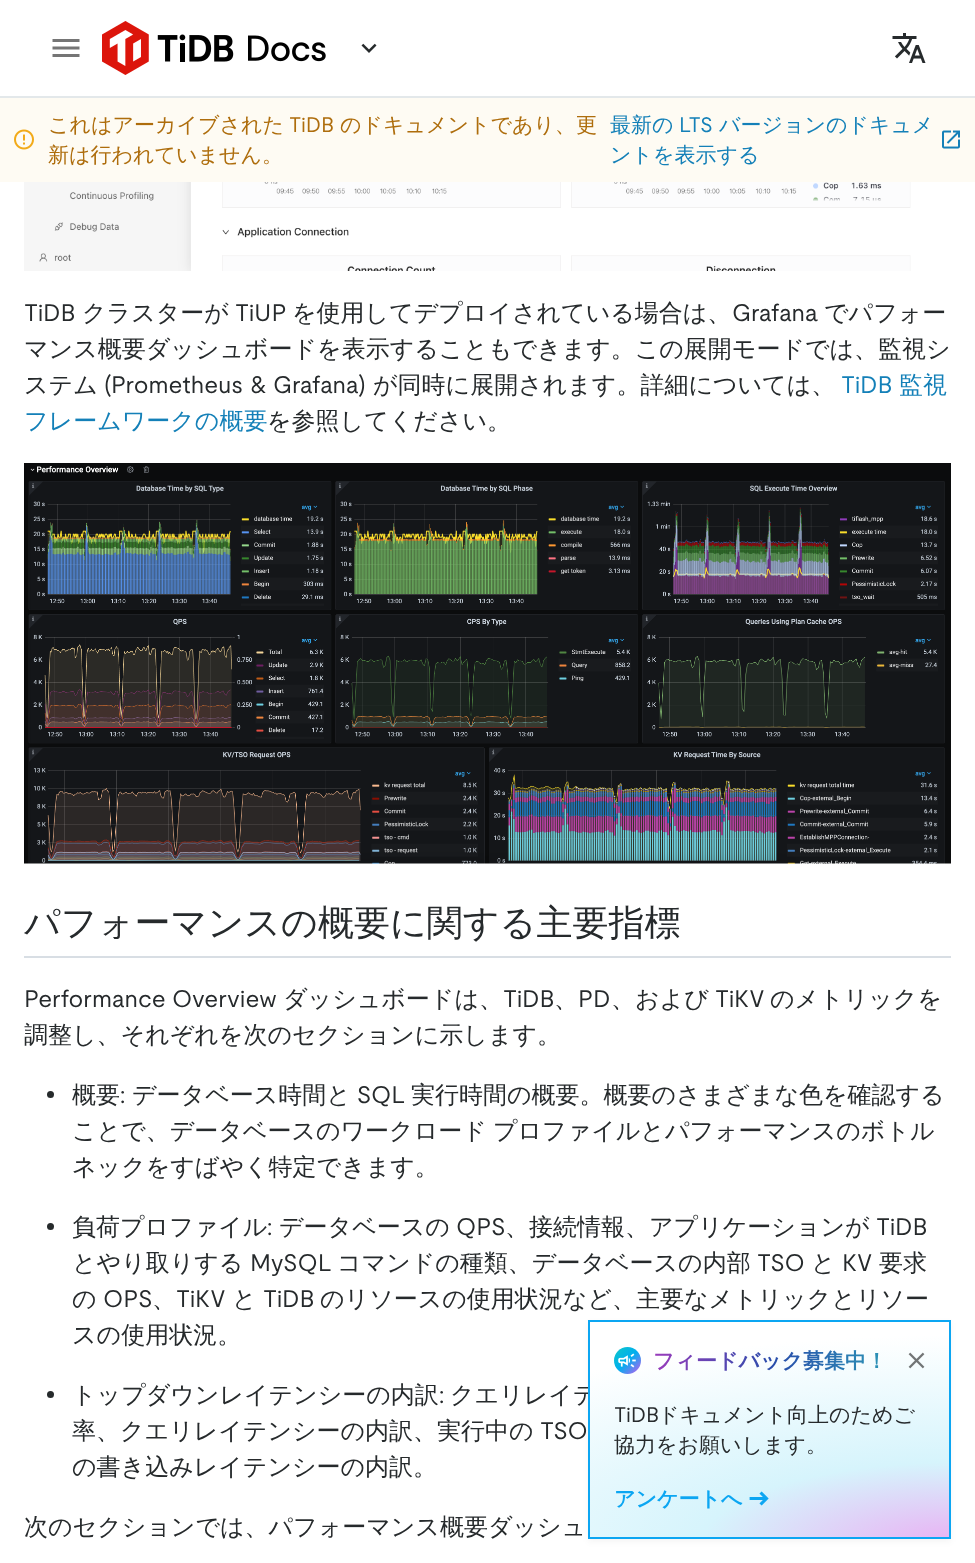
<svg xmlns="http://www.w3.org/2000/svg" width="975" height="1563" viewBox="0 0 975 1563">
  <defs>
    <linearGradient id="g1" gradientUnits="userSpaceOnUse" x1="653" y1="1361" x2="896" y2="1361"><stop offset="0" stop-color="#9a3cbb"/><stop offset="0.5" stop-color="#284dab"/><stop offset="1" stop-color="#2d9bb7"/></linearGradient>
    <radialGradient id="g2" gradientUnits="userSpaceOnUse" cx="0" cy="0" r="1" gradientTransform="matrix(652 0 0 209 956 1544)"><stop offset="0" stop-color="#e9b0f3"/><stop offset="0.39" stop-color="#d6f4fc"/><stop offset="1" stop-color="#fff"/></radialGradient>
    <linearGradient id="g3" gradientUnits="userSpaceOnUse" x1="614" y1="1347" x2="641" y2="1374"><stop offset="0" stop-color="#0fc7c7"/><stop offset="0.5" stop-color="#00aeef"/><stop offset="1" stop-color="#ca5af0"/></linearGradient>
  </defs>
  <rect width="100%" height="100%" fill="#fff"/>
  <path d="M0 96h975v2H0z" fill="#e3e8ea"/>
  <image x="52" y="39" width="28" height="18" href="img/1.png"/>
  <image x="102" y="21" width="224" height="54" href="img/2.png"/>
  <image x="361" y="43" width="16" height="10" href="img/3.png"/>
  <image x="892" y="33" width="34" height="30" href="img/4.png"/>
  <path d="M0 98h975v84H0z" fill="#fefbf3"/>
  <image x="14" y="129" width="20" height="21" href="img/5.png"/>
  <image x="942" y="130" width="18" height="19" href="img/6.png"/>
  <image x="24" y="182" width="887" height="89" href="img/7.png"/>
  <image x="24" y="463" width="927" height="401" href="img/8.png"/>
  <path d="M24 956h927v2H24z" fill="#d8dee4"/>
  <circle cx="50.5" cy="1094.5" r="3.5" fill="#262a2c"/>
  <circle cx="50.5" cy="1226.5" r="3.5" fill="#262a2c"/>
  <circle cx="50.5" cy="1394.5" r="3.5" fill="#262a2c"/>
  <path d="M588 1323h363v219H588z" fill="#0000000a" filter="blur(3px)"/>
  <text x="48" y="132" font-family="WenQuanYi Zen Hei" font-size="21" font-weight="500" fill="#ae6d0c">これはアーカイブされた</text>
  <text x="289" y="132" font-family="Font" font-size="21" fill="#ae6d0c">TiDB</text>
  <g font-family="WenQuanYi Zen Hei" font-size="21" font-weight="500" fill="#ae6d0c">
    <text x="340" y="132">のドキュメントであり、更</text>
    <text x="48" y="162">新は行われていません。</text>
  </g>
  <text x="610" y="132" font-family="WenQuanYi Zen Hei" font-size="21" font-weight="500" fill="#1480b8">最新の</text>
  <text x="679" y="132" font-family="Font" font-size="21" fill="#1480b8">LTS</text>
  <g font-family="WenQuanYi Zen Hei" font-size="21" font-weight="500" fill="#1480b8">
    <text x="719" y="132">バージョンのドキュメ</text>
    <text x="610" y="162">ントを表示する</text>
  </g>
  <text x="24" y="321" font-family="Font" font-size="24" fill="#262a2c">TiDB</text>
  <text x="82" y="321" font-family="WenQuanYi Zen Hei" font-size="24" font-weight="500" fill="#262a2c">クラスターが</text>
  <text x="235" y="321" font-family="Font" font-size="24" fill="#262a2c">TiUP</text>
  <text x="292" y="321" font-family="WenQuanYi Zen Hei" font-size="24" font-weight="500" fill="#262a2c">を使用してデプロイされている場合は、</text>
  <text x="732" y="321" font-family="Font" font-size="24" fill="#262a2c">Grafana</text>
  <g font-family="WenQuanYi Zen Hei" font-size="24" font-weight="500" fill="#262a2c">
    <text x="824" y="321">でパフォー</text>
    <text x="24" y="357">マンス概要ダッシュボードを表示することもできます。この展開モードでは、監視シ</text>
    <text x="24" y="393">ステム</text>
  </g>
  <g font-family="Font" font-size="24" fill="#262a2c">
    <text x="104" y="393">(Prometheus</text>
    <text x="250" y="393">&amp;</text>
    <text x="273" y="393">Grafana)</text>
  </g>
  <text x="373" y="393" font-family="WenQuanYi Zen Hei" font-size="24" font-weight="500" fill="#262a2c">が同時に展開されます。詳細については、</text>
  <text x="841" y="393" font-family="Font" font-size="24" fill="#1480b8">TiDB</text>
  <g font-family="WenQuanYi Zen Hei" font-size="24" font-weight="500" fill="#1480b8">
    <text x="899" y="393">監視</text>
    <text x="24" y="429">フレームワークの概要</text>
  </g>
  <text x="267" y="429" font-family="WenQuanYi Zen Hei" font-size="24" font-weight="500" fill="#262a2c">を参照してください。</text>
  <text x="24" y="935" font-family="WenQuanYi Zen Hei" font-size="36" font-weight="500" fill="#262a2c">パフォーマンスの概要に関する主要指標</text>
  <text x="24" y="1007" font-family="Font" font-size="24" fill="#262a2c">Performance Overview</text>
  <text x="283" y="1007" font-family="WenQuanYi Zen Hei" font-size="24" font-weight="500" fill="#262a2c">ダッシュボードは、</text>
  <g font-family="Font" font-size="24" fill="#262a2c">
    <text x="503" y="1007">TiDB</text>
    <text x="578" y="1007">PD</text>
  </g>
  <text x="611" y="1007" font-family="WenQuanYi Zen Hei" font-size="24" font-weight="500" fill="#262a2c">、および</text>
  <text x="715" y="1007" font-family="Font" font-size="24" fill="#262a2c">TiKV</text>
  <g font-family="WenQuanYi Zen Hei" font-size="24" font-weight="500" fill="#262a2c">
    <text x="770" y="1007">のメトリックを</text>
    <text x="554" y="1007">、</text>
    <text x="24" y="1043">調整し、それぞれを次のセクションに示します。</text>
    <text x="72" y="1103">概要</text>
  </g>
  <text x="120" y="1103" font-family="Font" font-size="24" fill="#262a2c">:</text>
  <text x="132" y="1103" font-family="WenQuanYi Zen Hei" font-size="24" font-weight="500" fill="#262a2c">データベース時間と</text>
  <text x="357" y="1103" font-family="Font" font-size="24" fill="#262a2c">SQL</text>
  <g font-family="WenQuanYi Zen Hei" font-size="24" font-weight="500" fill="#262a2c">
    <text x="411" y="1103">実行時間の概要。概要のさまざまな色を確認する</text>
    <text x="72" y="1139" word-spacing="-1">ことで、データベースのワークロード プロファイルとパフォーマンスのボトル</text>
    <text x="72" y="1175">ネックをすばやく特定できます。</text>
    <text x="72" y="1235">負荷プロファイル</text>
  </g>
  <text x="267" y="1235" font-family="Font" font-size="24" fill="#262a2c">:</text>
  <text x="279" y="1235" font-family="WenQuanYi Zen Hei" font-size="24" font-weight="500" fill="#262a2c">データベースの</text>
  <text x="456" y="1235" font-family="Font" font-size="24" fill="#262a2c">QPS</text>
  <text x="505" y="1235" font-family="WenQuanYi Zen Hei" font-size="24" font-weight="500" fill="#262a2c">、接続情報、アプリケーションが</text>
  <text x="876" y="1235" font-family="Font" font-size="24" fill="#262a2c">TiDB</text>
  <text x="72" y="1271" font-family="WenQuanYi Zen Hei" font-size="24" font-weight="500" fill="#262a2c">とやり取りする</text>
  <text x="250" y="1271" font-family="Font" font-size="24" fill="#262a2c">MySQL</text>
  <text x="337" y="1271" font-family="WenQuanYi Zen Hei" font-size="24" font-weight="500" fill="#262a2c">コマンドの種類、データベースの内部</text>
  <text x="757" y="1271" font-family="Font" font-size="24" fill="#262a2c">TSO</text>
  <text x="811" y="1271" font-family="WenQuanYi Zen Hei" font-size="24" font-weight="500" fill="#262a2c">と</text>
  <text x="842" y="1271" font-family="Font" font-size="24" fill="#262a2c">KV</text>
  <g font-family="WenQuanYi Zen Hei" font-size="24" font-weight="500" fill="#262a2c">
    <text x="879" y="1271">要求</text>
    <text x="72" y="1307">の</text>
  </g>
  <text x="103" y="1307" font-family="Font" font-size="24" fill="#262a2c">OPS</text>
  <text x="152" y="1307" font-family="WenQuanYi Zen Hei" font-size="24" font-weight="500" fill="#262a2c">、</text>
  <text x="176" y="1307" font-family="Font" font-size="24" fill="#262a2c">TiKV</text>
  <text x="232" y="1307" font-family="WenQuanYi Zen Hei" font-size="24" font-weight="500" fill="#262a2c">と</text>
  <text x="263" y="1307" font-family="Font" font-size="24" fill="#262a2c">TiDB</text>
  <g font-family="WenQuanYi Zen Hei" font-size="24" font-weight="500" fill="#262a2c">
    <text x="320" y="1307">のリソースの使用状況など、主要なメトリックとリソー</text>
    <text x="72" y="1343">スの使用状況。</text>
    <text x="72" y="1403">トップダウンレイテンシーの内訳</text>
  </g>
  <text x="439" y="1403" font-family="Font" font-size="24" fill="#262a2c">:</text>
  <g font-family="WenQuanYi Zen Hei" font-size="24" font-weight="500" fill="#262a2c">
    <text x="450" y="1403">クエリレイテ</text>
    <text x="72" y="1439">率、クエリレイテンシーの内訳、実行中の</text>
  </g>
  <text x="540" y="1439" font-family="Font" font-size="24" fill="#262a2c">TSO</text>
  <g font-family="WenQuanYi Zen Hei" font-size="24" font-weight="500" fill="#262a2c">
    <text x="72" y="1475">の書き込みレイテンシーの内訳。</text>
    <text x="24" y="1535">次のセクションでは、パフォーマンス概要ダッシュ</text>
  </g>
  <path d="M590 1322h359v215H590z" fill="url(#g2)"/>
  <path d="M589 1321h361v217H589z" fill="none" stroke="#0ca6f2" stroke-width="2"/>
  <circle cx="627.5" cy="1360.5" r="13.5" fill="url(#g3)"/>
  <image x="618" y="1353" width="18" height="15" href="img/9.png"/>
  <text x="653" y="1368" font-family="WenQuanYi Zen Hei" font-size="21" font-weight="bold" fill="url(#g1)">フィードバック募集中！</text>
  <image x="908" y="1352" width="17" height="17" href="img/10.png"/>
  <text x="614" y="1422" font-family="Font" font-size="21" fill="#262a2c">TiDB</text>
  <g font-family="WenQuanYi Zen Hei" font-size="21" font-weight="500" fill="#262a2c">
    <text x="658" y="1422">ドキュメント向上のためご</text>
    <text x="614" y="1452">協力をお願いします。</text>
  </g>
  <text x="614" y="1506" font-family="WenQuanYi Zen Hei" font-size="21" font-weight="bold" fill="#0ca6f2">アンケートへ</text>
  <image x="749" y="1491" width="20" height="15" href="img/11.png"/>
</svg>
